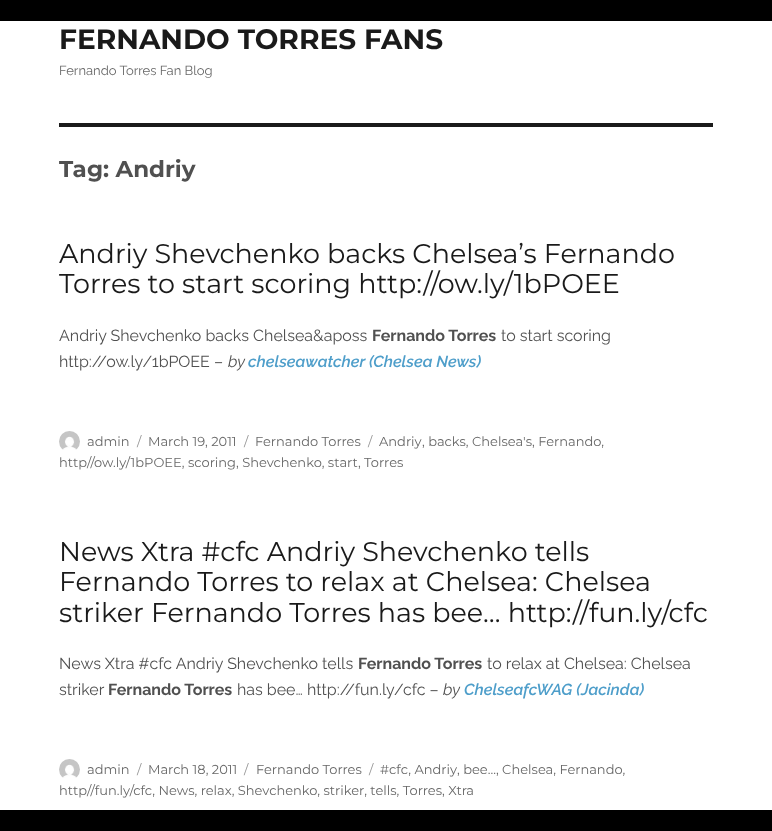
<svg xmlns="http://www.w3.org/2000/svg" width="772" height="831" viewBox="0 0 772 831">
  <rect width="100%" height="100%" fill="#fff"/>
  <path d="M0 0h772v21H0z" fill="#000"/>
  <path d="M59 123h654v4H59z" fill="#1a1a1a"/>
  <image x="59" y="431" width="21" height="19" href="img/1.png"/>
  <image x="59" y="759" width="21" height="19" href="img/2.png"/>
  <path d="M0 810h772v21H0z" fill="#000"/>
  <text x="59" y="49" font-family="Montserrat" font-size="28" font-weight="100" fill="#1a1a1a">FERNANDO TORRES FANS</text>
  <text x="59" y="75" font-family="Raleway" font-size="13" fill="#686868">Fernando Torres Fan Blog</text>
  <text x="59" y="177" font-family="Montserrat" font-size="23" font-weight="100" fill="#505050">Tag: Andriy</text>
  <g font-family="'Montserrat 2'" font-size="27" font-weight="100" fill="#1a1a1a">
    <text x="59" y="263">Andriy Shevchenko backs Chelsea’s Fernando</text>
    <text x="59" y="293">Torres to start scoring http://ow.ly/1bPOEE</text>
  </g>
  <text x="59" y="341" font-family="Raleway" font-size="16" fill="#505050">Andriy Shevchenko backs Chelsea&amp;aposs</text>
  <text x="372" y="341" font-family="Raleway" font-size="16" font-weight="bold" fill="#505050">Fernando Torres</text>
  <g font-family="Raleway" font-size="16" fill="#505050">
    <text x="501" y="341">to start scoring</text>
    <text x="59" y="367">http://ow.ly/1bPOEE –</text>
  </g>
  <text x="228" y="367" font-family="Raleway" font-size="16" font-style="italic" fill="#505050">by</text>
  <text x="248" y="367" font-family="Raleway" font-size="16" font-weight="600" font-style="italic" fill="#4e9eca">chelseawatcher (Chelsea News)</text>
  <text x="87" y="446" font-family="'Montserrat 2'" font-size="13" font-weight="100" fill="#686868">admin</text>
  <text x="137" y="446" font-family="'Montserrat 2'" font-size="13" font-weight="100" fill="#959595">/</text>
  <text x="148" y="446" font-family="'Montserrat 2'" font-size="13" font-weight="100" fill="#686868">March 19, 2011</text>
  <text x="244" y="446" font-family="'Montserrat 2'" font-size="13" font-weight="100" fill="#959595">/</text>
  <text x="255" y="446" font-family="'Montserrat 2'" font-size="13" font-weight="100" fill="#686868">Fernando Torres</text>
  <text x="368" y="446" font-family="'Montserrat 2'" font-size="13" font-weight="100" fill="#959595">/</text>
  <g font-family="'Montserrat 2'" font-size="13" font-weight="100" fill="#686868">
    <text x="379" y="446">Andriy</text>
    <text x="422" y="446">, backs, Chelsea's, Fernando,</text>
    <text x="59" y="467">http//ow.ly/1bPOEE, scoring, Shevchenko, start, Torres</text>
  </g>
  <g font-family="'Montserrat 2'" font-size="27" font-weight="100" fill="#1a1a1a">
    <text x="59" y="561">News Xtra #cfc Andriy Shevchenko tells</text>
    <text x="59" y="591">Fernando Torres to relax at Chelsea: Chelsea</text>
    <text x="59" y="622">striker Fernando Torres has bee… http://fun.ly/cfc</text>
  </g>
  <text x="59" y="669" font-family="Raleway" font-size="16" fill="#505050">News Xtra #cfc Andriy Shevchenko tells</text>
  <text x="358" y="669" font-family="Raleway" font-size="16" font-weight="bold" fill="#505050">Fernando Torres</text>
  <g font-family="Raleway" font-size="16" fill="#505050">
    <text x="487" y="669">to relax at Chelsea: Chelsea</text>
    <text x="59" y="695">striker</text>
  </g>
  <text x="108" y="695" font-family="Raleway" font-size="16" font-weight="bold" fill="#505050">Fernando Torres</text>
  <text x="237" y="695" font-family="Raleway" font-size="16" fill="#505050">has bee… http://fun.ly/cfc –</text>
  <text x="443" y="695" font-family="Raleway" font-size="16" font-style="italic" fill="#505050">by</text>
  <text x="464" y="695" font-family="Raleway" font-size="16" font-weight="600" font-style="italic" fill="#4e9eca">ChelseafcWAG (Jacinda)</text>
  <text x="87" y="774" font-family="'Montserrat 2'" font-size="13" font-weight="100" fill="#686868">admin</text>
  <text x="137" y="774" font-family="'Montserrat 2'" font-size="13" font-weight="100" fill="#959595">/</text>
  <text x="148" y="774" font-family="'Montserrat 2'" font-size="13" font-weight="100" fill="#686868">March 18, 2011</text>
  <text x="244" y="774" font-family="'Montserrat 2'" font-size="13" font-weight="100" fill="#959595">/</text>
  <text x="256" y="774" font-family="'Montserrat 2'" font-size="13" font-weight="100" fill="#686868">Fernando Torres</text>
  <text x="369" y="774" font-family="'Montserrat 2'" font-size="13" font-weight="100" fill="#959595">/</text>
  <g font-family="'Montserrat 2'" font-size="13" font-weight="100" fill="#686868">
    <text x="380" y="774">#cfc, Andriy</text>
    <text x="457" y="774">, bee..., Chelsea, Fernando,</text>
    <text x="59" y="795">http//fun.ly/cfc, News, relax, Shevchenko, striker, tells, Torres, Xtra</text>
  </g>
</svg>
